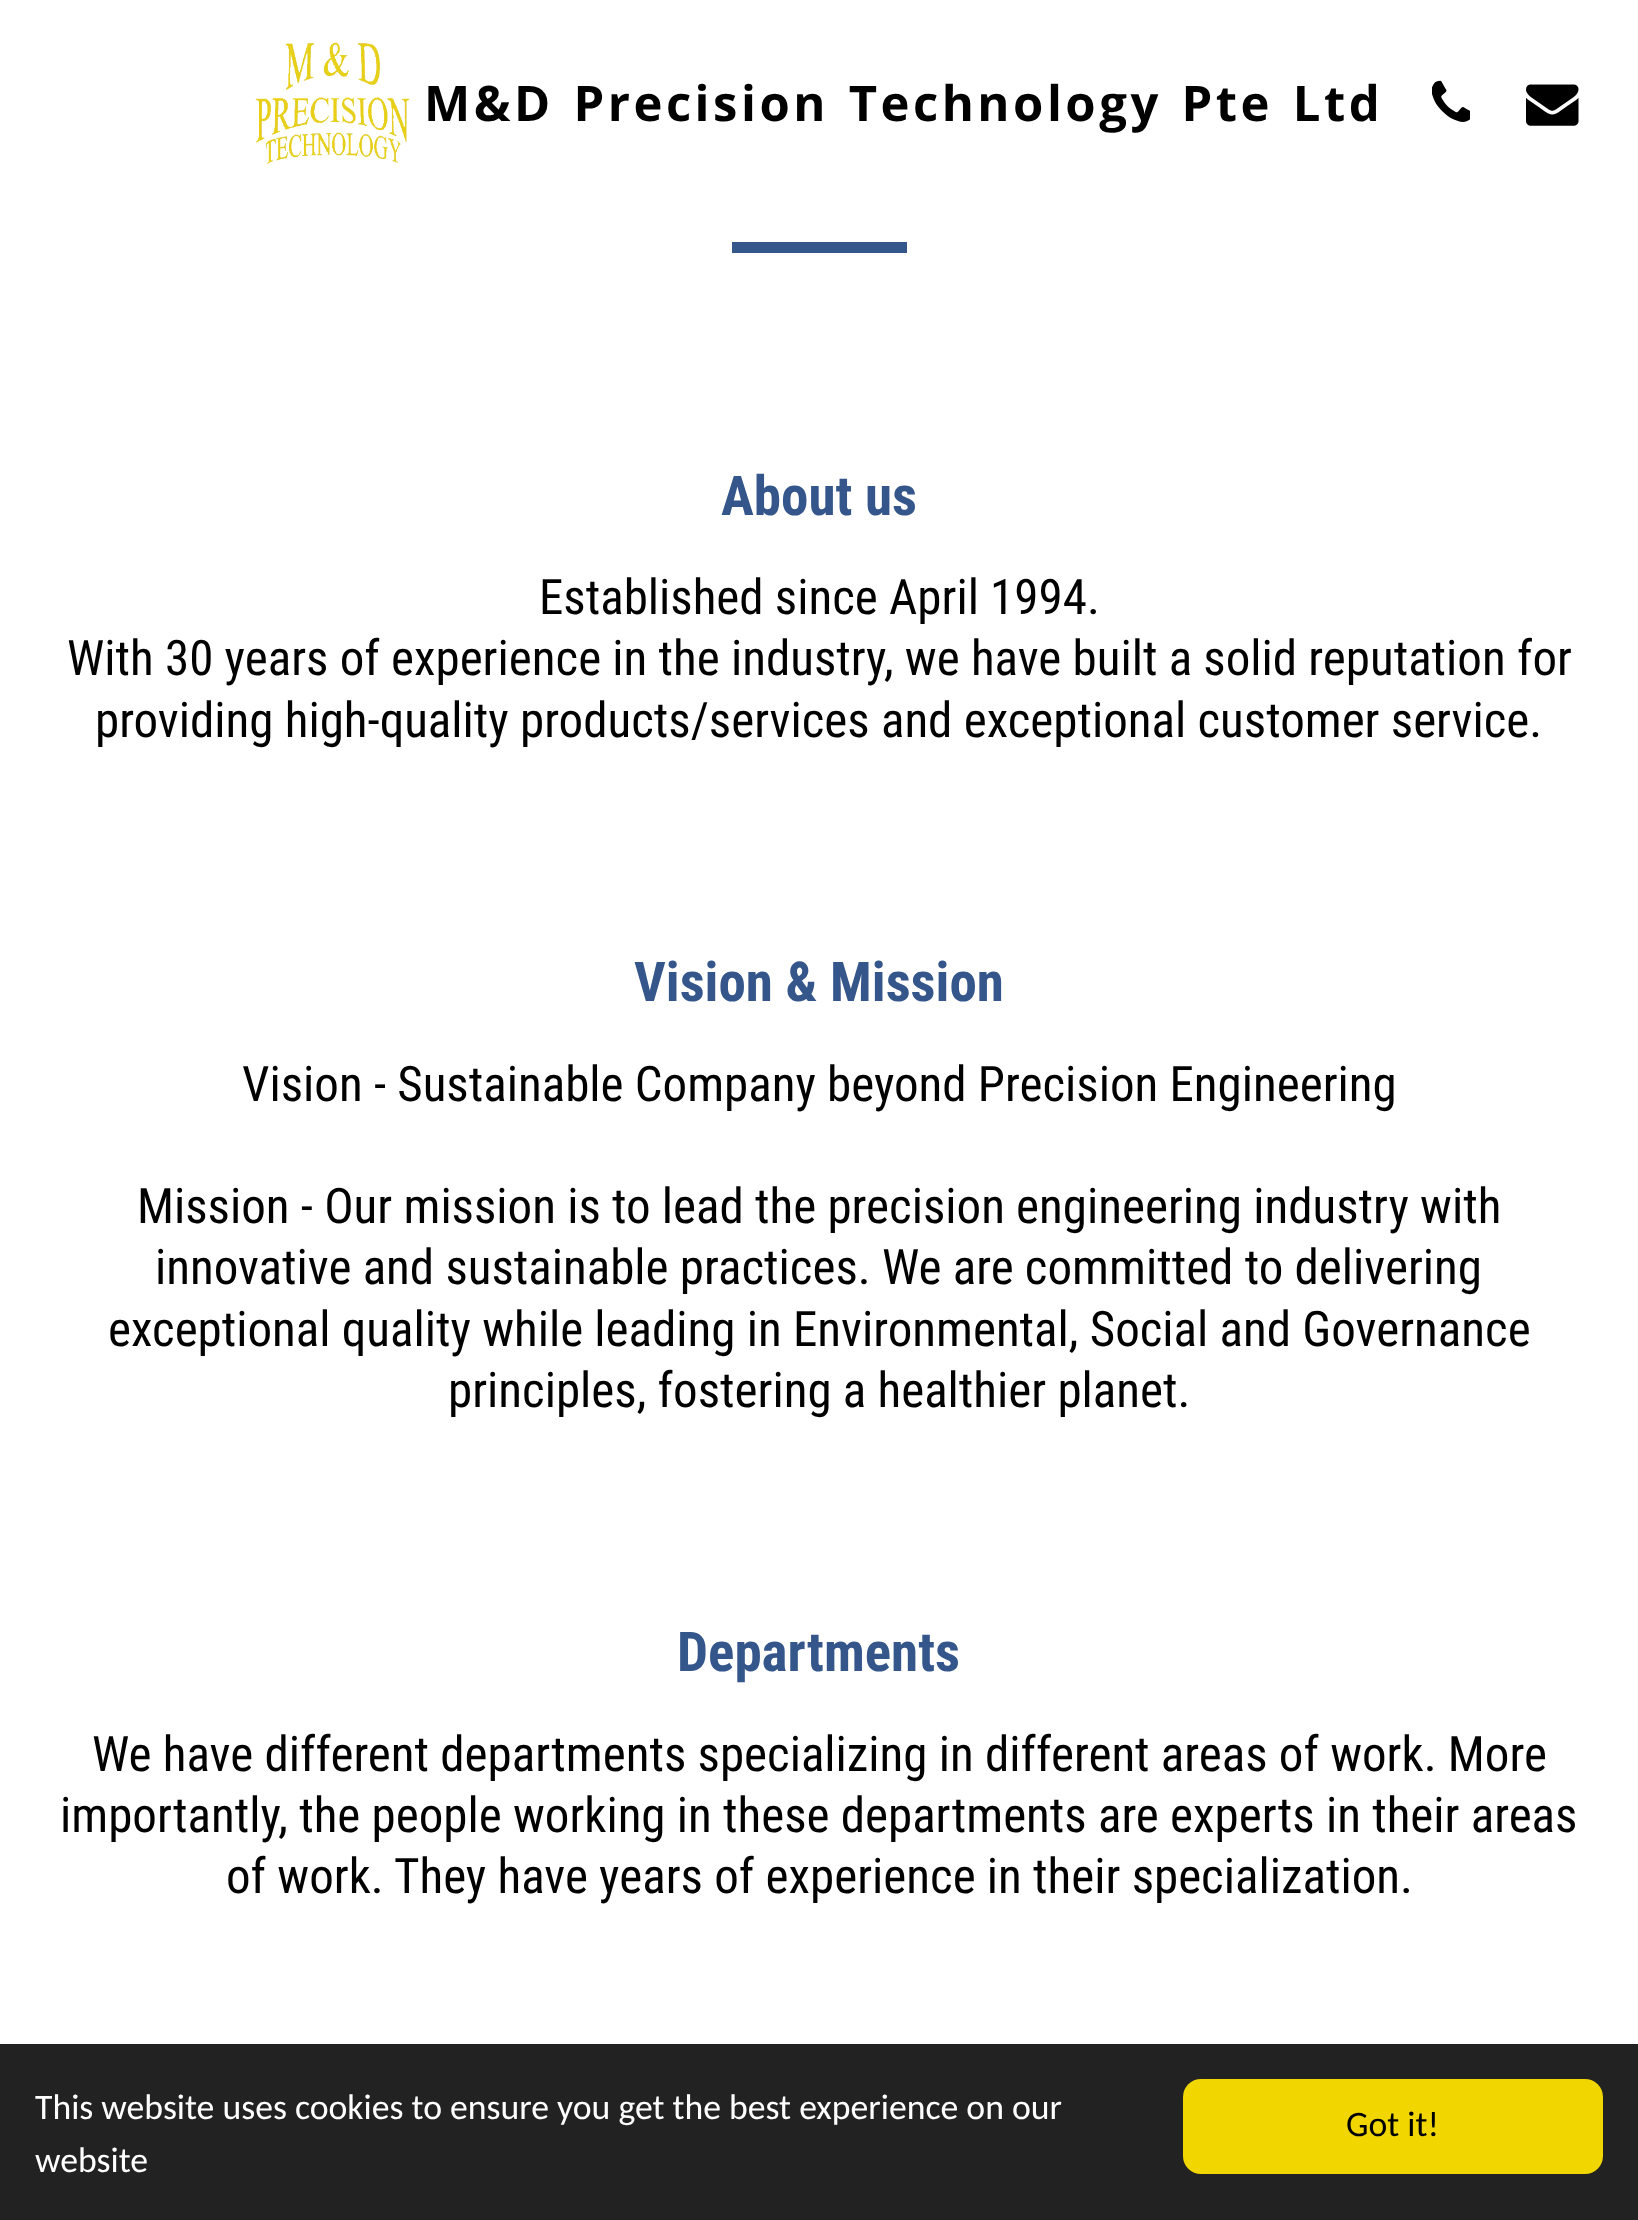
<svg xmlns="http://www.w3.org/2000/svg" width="1638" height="2220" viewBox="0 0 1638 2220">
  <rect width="100%" height="100%" fill="#fff"/>
  <image x="255" y="42" width="155" height="122" href="img/1.png"/>
  <image x="1432" y="80" width="38" height="42" href="img/2.png"/>
  <image x="1526" y="84" width="53" height="42" href="img/3.png"/>
  <path d="M732 242h175v11H732z" fill="#34568b"/>
  <path d="M0 2044h1638v176H0z" fill="#222"/>
  <rect x="1183" y="2079" width="420" height="95" rx="18" fill="#f1d600"/>
  <text x="424" y="121" word-spacing="3.5" font-family="Open Sans" font-size="49" font-weight="bold" letter-spacing="3.5" fill="#000">M&amp;D Precision Technology Pte Ltd</text>
  <text x="721" y="515" font-family="Roboto Condensed" font-size="55" font-weight="bold" fill="#34568b">About us</text>
  <g font-family="Roboto Condensed" font-size="49" fill="#000">
    <text x="539" y="614">Established since April 1994.</text>
    <text x="67" y="675">With 30 years of experience in the industry, we have built a solid reputation for</text>
    <text x="95" y="737">providing high-quality products/services and exceptional customer service.</text>
  </g>
  <text x="634" y="1001" font-family="Roboto Condensed" font-size="55" font-weight="bold" fill="#34568b">Vision &amp; Mission</text>
  <g font-family="Roboto Condensed" font-size="49" fill="#000">
    <text x="242" y="1101">Vision - Sustainable Company beyond Precision Engineering</text>
    <text x="137" y="1223">Mission - Our mission is to lead the precision engineering industry with</text>
    <text x="155" y="1284">innovative and sustainable practices. We are committed to delivering</text>
    <text x="108" y="1346">exceptional quality while leading in Environmental, Social and Governance</text>
    <text x="448" y="1407">principles, fostering a healthier planet.</text>
  </g>
  <text x="677" y="1671" font-family="Roboto Condensed" font-size="55" font-weight="bold" fill="#34568b">Departments</text>
  <g font-family="Roboto Condensed" font-size="49" fill="#000">
    <text x="92" y="1771">We have different departments specializing in different areas of work. More</text>
    <text x="60" y="1832">importantly, the people working in these departments are experts in their areas</text>
    <text x="226" y="1893">of work. They have years of experience in their specialization.</text>
  </g>
  <g font-family="Carlito" font-size="35.7" fill="#fff">
    <text x="35" y="2119">This website uses cookies to ensure you get the best experience on our</text>
    <text x="35" y="2172">website</text>
  </g>
  <text x="1346" y="2136" font-family="Carlito" font-size="35.7" fill="#000">Got it!</text>
</svg>
